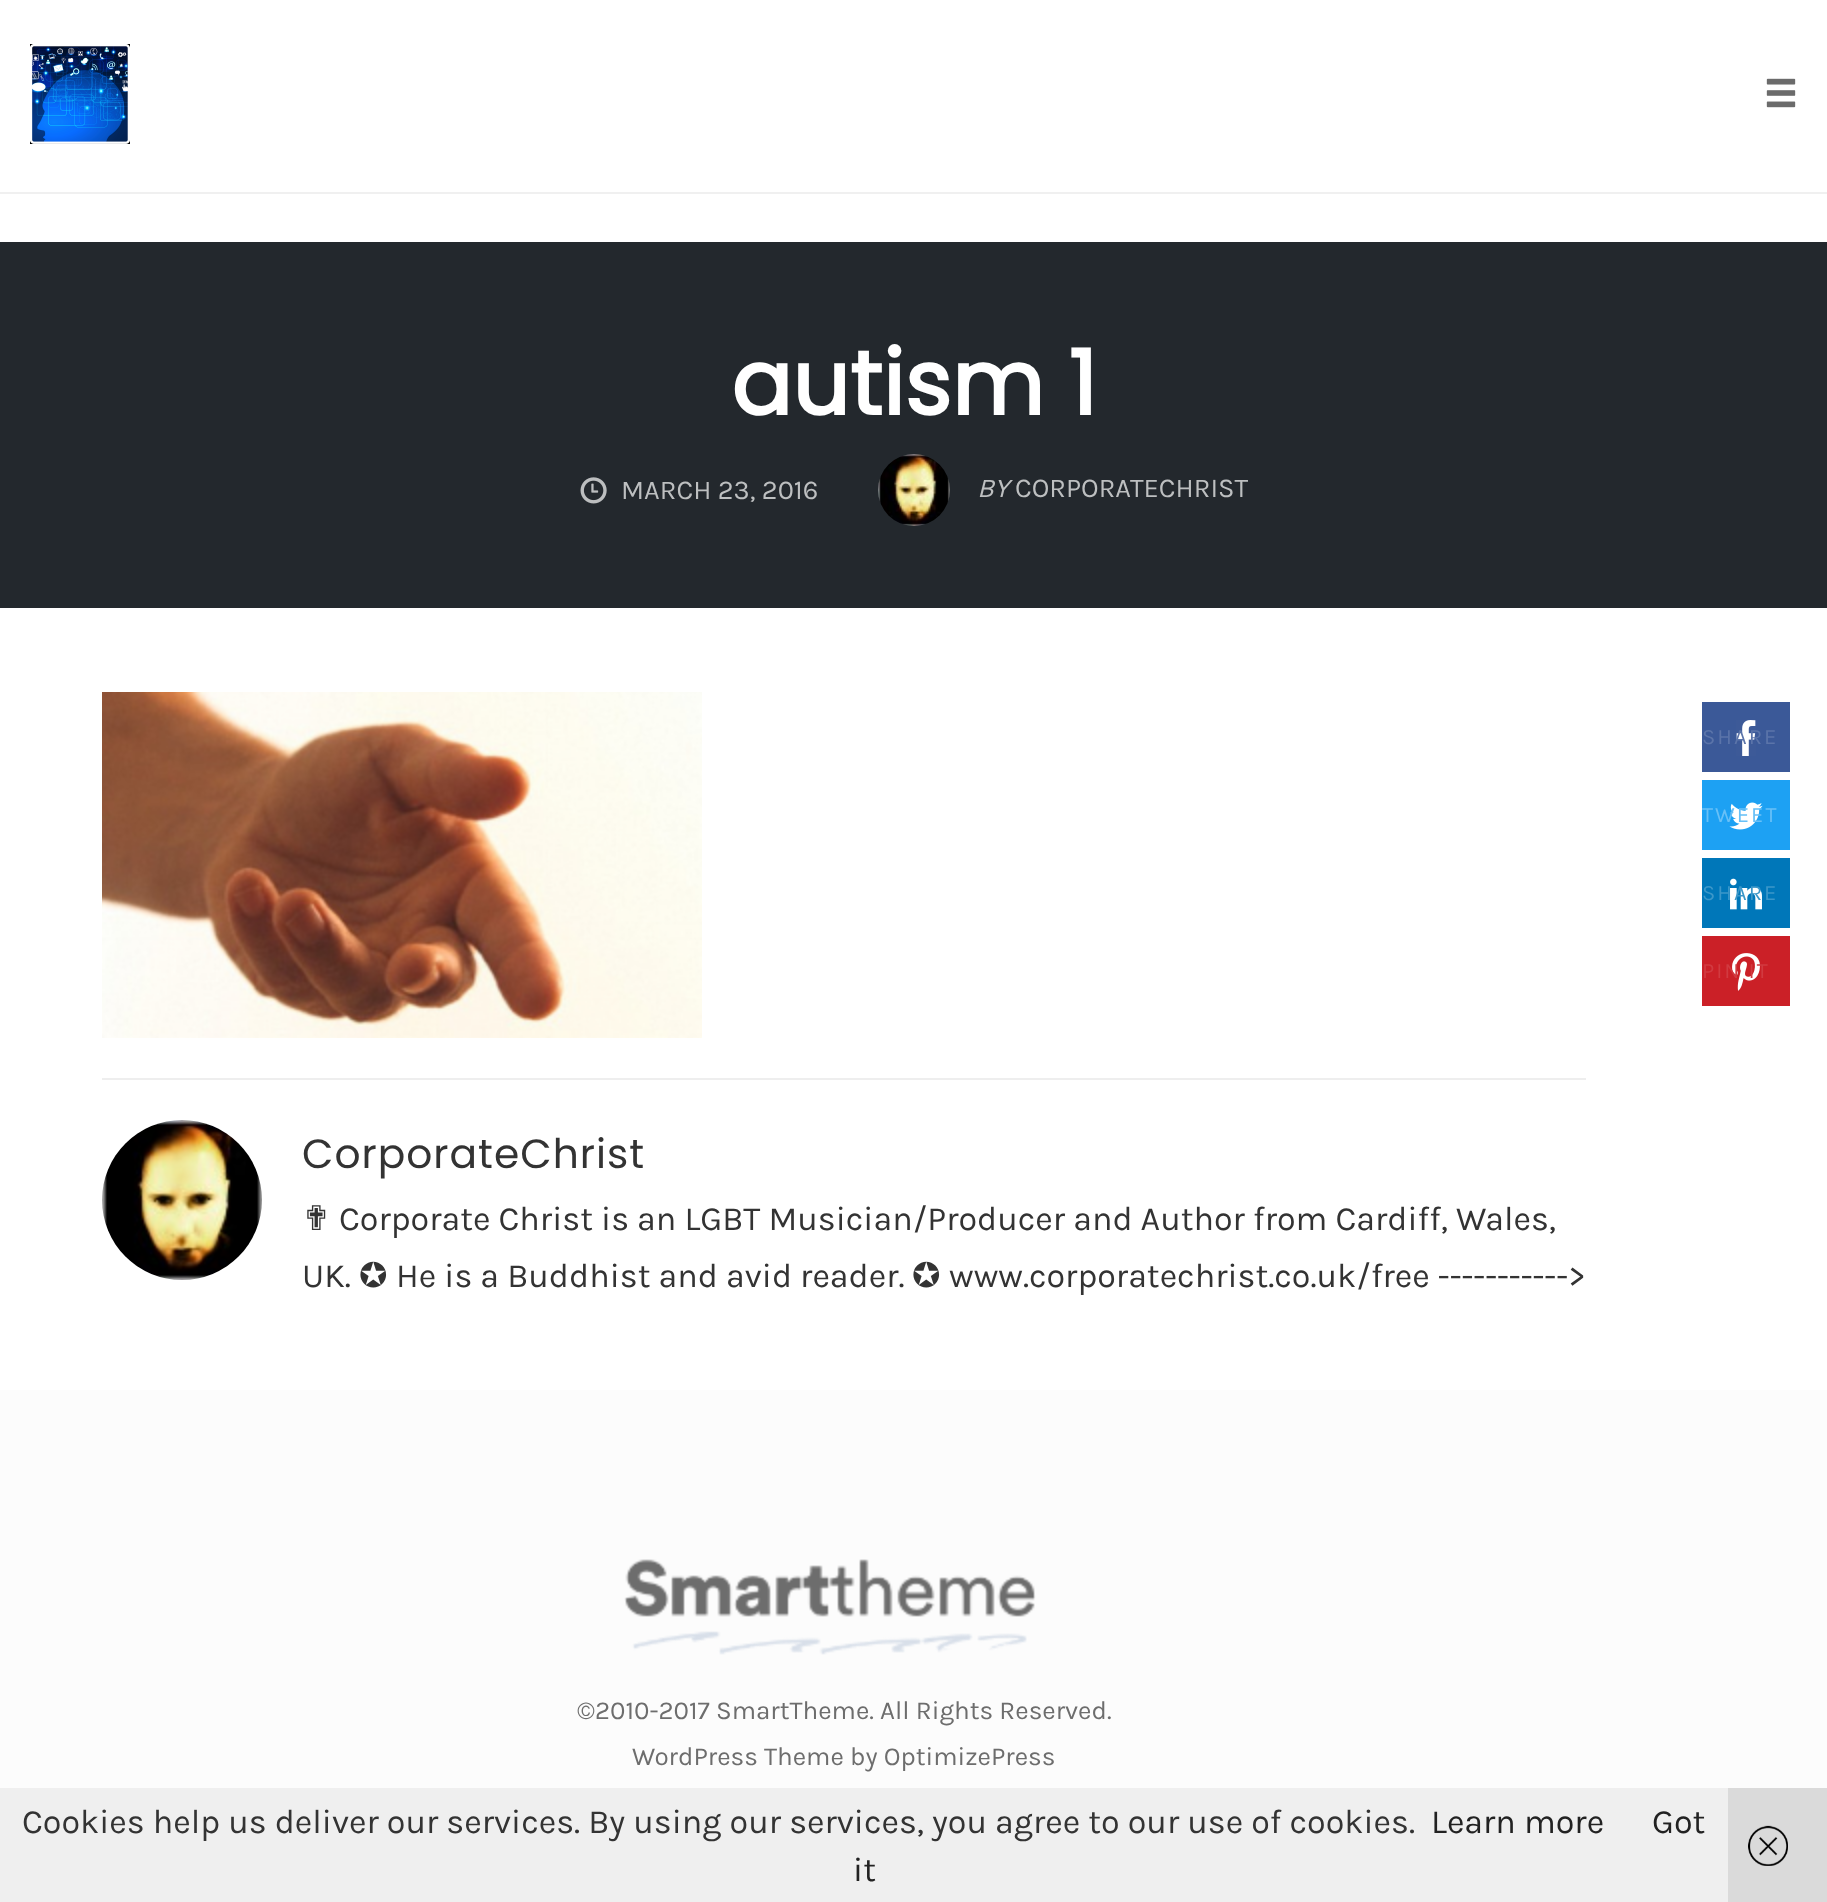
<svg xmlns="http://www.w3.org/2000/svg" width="1827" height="1902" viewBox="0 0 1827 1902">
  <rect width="100%" height="100%" fill="#fff"/>
  <path d="M0 192h1827v2H0z" fill="#f0f0f0"/>
  <image x="30" y="44" width="100" height="100" href="img/1.png"/>
  <image x="1766" y="78" width="30" height="30" href="img/2.png"/>
  <path d="M0 242h1827v366H0z" fill="#23282d"/>
  <image x="580" y="477" width="27" height="27" href="img/3.png"/>
  <image x="878" y="454" width="72" height="72" href="img/4.png"/>
  <image x="102" y="692" width="600" height="346" href="img/5.png"/>
  <path d="M102 1078h1484v2H102z" fill="#eee"/>
  <image x="102" y="1120" width="160" height="160" href="img/6.png"/>
  <path d="M1702 702h88v70H1702z" fill="#3b5998"/>
  <image x="1736" y="720" width="20" height="36" href="img/7.png"/>
  <path d="M1702 780h88v70H1702z" fill="#1da1f3"/>
  <image x="1729" y="802" width="34" height="28" href="img/8.png"/>
  <path d="M1702 858h88v70H1702z" fill="#0077b9"/>
  <image x="1730" y="878" width="32" height="32" href="img/9.png"/>
  <path d="M1702 936h88v70H1702z" fill="#cb2027"/>
  <image x="1732" y="953" width="28" height="38" href="img/10.png"/>
  <path d="M0 1390h1827v398H0z" fill="#fcfcfc"/>
  <image x="624" y="1559" width="412" height="96" href="img/11.png"/>
  <path d="M0 1788h1728v114H0z" fill="#efefef"/>
  <path d="M1728 1788h99v114H1728z" fill="#dadada"/>
  <image x="1748" y="1825" width="40" height="41" href="img/12.png"/>
  <text x="731" y="415" font-family="Poppins" font-size="90" font-weight="bold" fill="#fff">autism 1</text>
  <text x="621" y="499" font-family="Karla" font-size="27.25" fill="#bdbfc0">MARCH 23, 2016</text>
  <text x="977" y="497" font-family="Karla" font-size="27.25" font-style="italic" fill="#bdbfc0">BY</text>
  <text x="1015" y="497" font-family="Karla" font-size="27.25" fill="#bdbfc0">CORPORATECHRIST</text>
  <text x="302" y="1168" font-family="Poppins" font-size="40.75" letter-spacing="1" fill="#333">CorporateChrist</text>
  <text x="302" y="1230" font-family="DejaVu Sans" font-size="34" fill="#333">✟</text>
  <g font-family="Karla" font-size="34" fill="#333">
    <text x="339" y="1230">Corporate Christ is an LGBT Musician/Producer and Author from Cardiff, Wales,</text>
    <text x="302" y="1287">UK.</text>
  </g>
  <text x="359" y="1287" font-family="DejaVu Sans" font-size="34" fill="#333">✪</text>
  <text x="396" y="1287" font-family="Karla" font-size="34" fill="#333">He is a Buddhist and avid reader.</text>
  <text x="912" y="1287" font-family="DejaVu Sans" font-size="34" fill="#333">✪</text>
  <text x="949" y="1287" font-family="Karla" font-size="34" fill="#333">www.corporatechrist.co.uk/free -----------&gt;</text>
  <text x="1702" y="744" font-family="Karla" font-size="22" letter-spacing="2" fill="#5b74a9">SHARE</text>
  <text x="1702" y="822" font-family="Karla" font-size="22" letter-spacing="2" fill="#68c0f7">TWEET</text>
  <text x="1702" y="900" font-family="Karla" font-size="22" letter-spacing="2" fill="#3b97c9">SHARE</text>
  <text x="1702" y="978" font-family="Karla" font-size="22" letter-spacing="2" fill="#d13a40">PIN IT</text>
  <g font-family="Karla" font-size="26" fill="#6d6d6d">
    <text x="577" y="1719">©2010-2017 SmartTheme. All Rights Reserved.</text>
    <text x="632" y="1765">WordPress Theme by OptimizePress</text>
  </g>
  <text x="22" y="1833" font-family="Karla" font-size="34" fill="#333">Cookies help us deliver our services. By using our services, you agree to our use of cookies.</text>
  <g font-family="Karla" font-size="34" fill="#222">
    <text x="1431" y="1833">Learn more</text>
    <text x="1652" y="1833">Got</text>
    <text x="853" y="1881">it</text>
  </g>
</svg>
